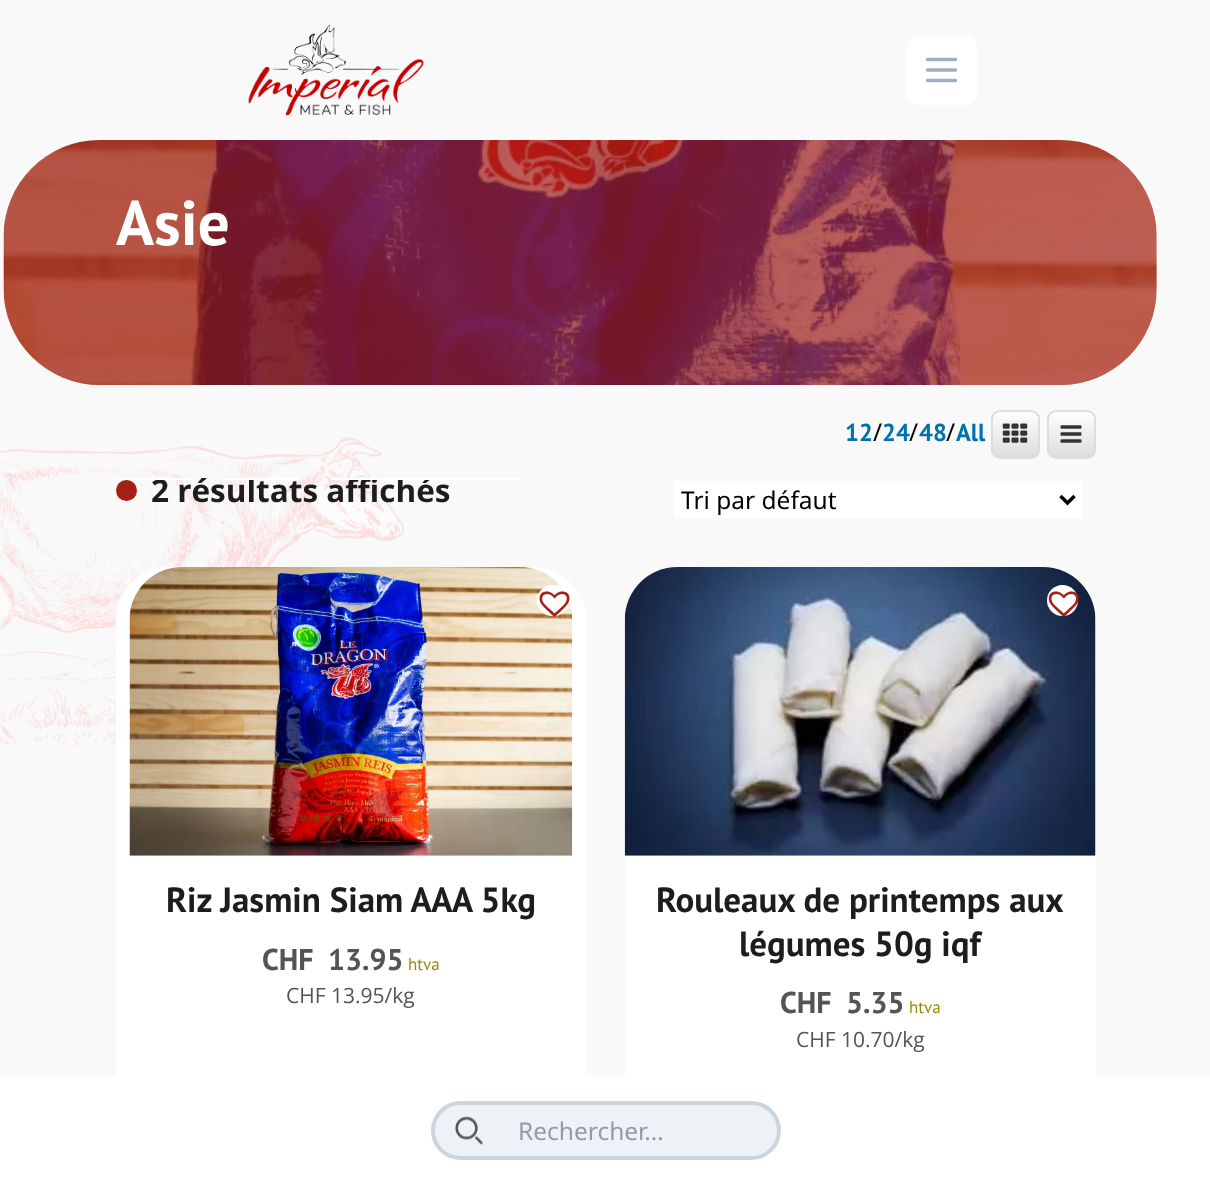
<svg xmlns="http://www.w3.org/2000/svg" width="1210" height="1185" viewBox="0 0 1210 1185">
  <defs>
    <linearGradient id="g1" gradientUnits="userSpaceOnUse" x1="1015" y1="410" x2="1015" y2="459"><stop offset="0" stop-color="#fff"/><stop offset="1" stop-color="#dcdcdc"/></linearGradient>
    <linearGradient id="g2" gradientUnits="userSpaceOnUse" x1="1071" y1="410" x2="1071" y2="459"><stop offset="0" stop-color="#fff"/><stop offset="1" stop-color="#dcdcdc"/></linearGradient>
  </defs>
  <rect width="100%" height="100%" fill="#f9f9f9"/>
  <image x="248" y="24" width="176" height="92" href="img/1.png"/>
  <rect x="907" y="35" width="70" height="70" rx="11" fill="#fff"/>
  <path d="M927.5 59.5H955.5M927.5 70H955.5M927.5 80.5H955.5" fill="none" stroke="#a0aec0" stroke-width="3.5" stroke-linecap="round" stroke-linejoin="round"/>
  <image x="3" y="140" width="1154" height="245" href="img/2.png"/>
  <image x="0" y="437" width="405" height="309" href="img/3.png"/>
  <rect x="992" y="411" width="47" height="47" rx="8" fill="url(#g1)" stroke="#ddd" stroke-width="2"/>
  <image x="1002" y="423" width="26" height="20" href="img/4.png"/>
  <rect x="1048" y="411" width="47" height="47" rx="8" fill="url(#g2)" stroke="#ddd" stroke-width="2"/>
  <image x="1060" y="425" width="22" height="18" href="img/5.png"/>
  <circle cx="126.5" cy="490.5" r="10.5" fill="#a42017"/>
  <path d="M674 481h408v37H674z" fill="#fff"/>
  <path d="M1060.5 496L1067.5 503L1074.5 496" fill="none" stroke="#000" stroke-width="3.5"/>
  <rect x="116" y="567" width="470" height="595" rx="53" fill="#fff"/>
  <image x="129" y="567" width="444" height="289" href="img/7.png"/>
  <rect x="537" y="585" width="32" height="31" rx="15.5" fill="#fff"/>
  <image x="539" y="591" width="31" height="27" href="img/6.png"/>
  <rect x="625" y="567" width="471" height="595" rx="53" fill="#fff"/>
  <image x="624" y="567" width="472" height="289" href="img/9.png"/>
  <circle cx="1062.5" cy="600.5" r="15.5" fill="#fff"/>
  <image x="1048" y="591" width="31" height="27" href="img/8.png"/>
  <path d="M0 1075h1210v110H0z" fill="#fff"/>
  <rect x="433" y="1103" width="346" height="55" rx="27.5" fill="#edf2f7" stroke="#cbd5e0" stroke-width="4"/>
  <image x="455" y="1116" width="28" height="29" href="img/10.png"/>
  <text x="116" y="245" font-family="PT Sans" font-size="63" font-weight="bold" fill="#fff">Asie</text>
  <text x="845" y="441" font-family="PT Sans" font-size="24.5" font-weight="bold" fill="#0073aa">12</text>
  <text x="873" y="441" font-family="Noto Sans" font-size="24.5" fill="#000">/</text>
  <text x="882" y="441" font-family="PT Sans" font-size="24.5" font-weight="bold" fill="#0073aa">24</text>
  <text x="909" y="441" font-family="Noto Sans" font-size="24.5" fill="#000">/</text>
  <text x="919" y="441" font-family="PT Sans" font-size="24.5" font-weight="bold" fill="#0073aa">48</text>
  <text x="946" y="441" font-family="Noto Sans" font-size="24.5" fill="#000">/</text>
  <text x="956" y="441" font-family="PT Sans" font-size="24.5" font-weight="bold" fill="#0073aa">All</text>
  <text x="151" y="502" font-family="Open Sans" font-size="31.5" font-weight="bold" fill="#1d1d1d">2 résultats affichés</text>
  <path d="M116 478h75v2H116z" fill="#fff"/>
  <path d="M222 478h77v2H222z" fill="#fff"/>
  <path d="M331 478h192v2H331z" fill="#fff"/>
  <text x="681" y="509" font-family="Noto Sans" font-size="24.5" fill="#000">Tri par défaut</text>
  <text x="166" y="912" font-family="PT Sans" font-size="35" font-weight="bold" fill="#1d1d1d">Riz Jasmin Siam AAA 5kg</text>
  <g font-family="PT Sans" font-size="30" font-weight="bold" fill="#545454">
    <text x="262" y="970">CHF</text>
    <text x="328" y="970">13.95</text>
  </g>
  <text x="408" y="970" font-family="PT Sans" font-size="17" fill="#958e09">htva</text>
  <text x="286" y="1003" font-family="Open Sans" font-size="21" fill="#545454">CHF 13.95/kg</text>
  <g font-family="PT Sans" font-size="35" font-weight="bold" fill="#1d1d1d">
    <text x="656" y="912">Rouleaux de printemps aux</text>
    <text x="739" y="956">légumes 50g iqf</text>
  </g>
  <g font-family="PT Sans" font-size="30" font-weight="bold" fill="#545454">
    <text x="780" y="1013">CHF</text>
    <text x="846" y="1013">5.35</text>
  </g>
  <text x="909" y="1013" font-family="PT Sans" font-size="17" fill="#958e09">htva</text>
  <text x="796" y="1047" font-family="Open Sans" font-size="21" fill="#545454">CHF 10.70/kg</text>
  <text x="518" y="1140" font-family="Noto Sans" font-size="24.5" fill="#929ca1">Rechercher…</text>
</svg>
